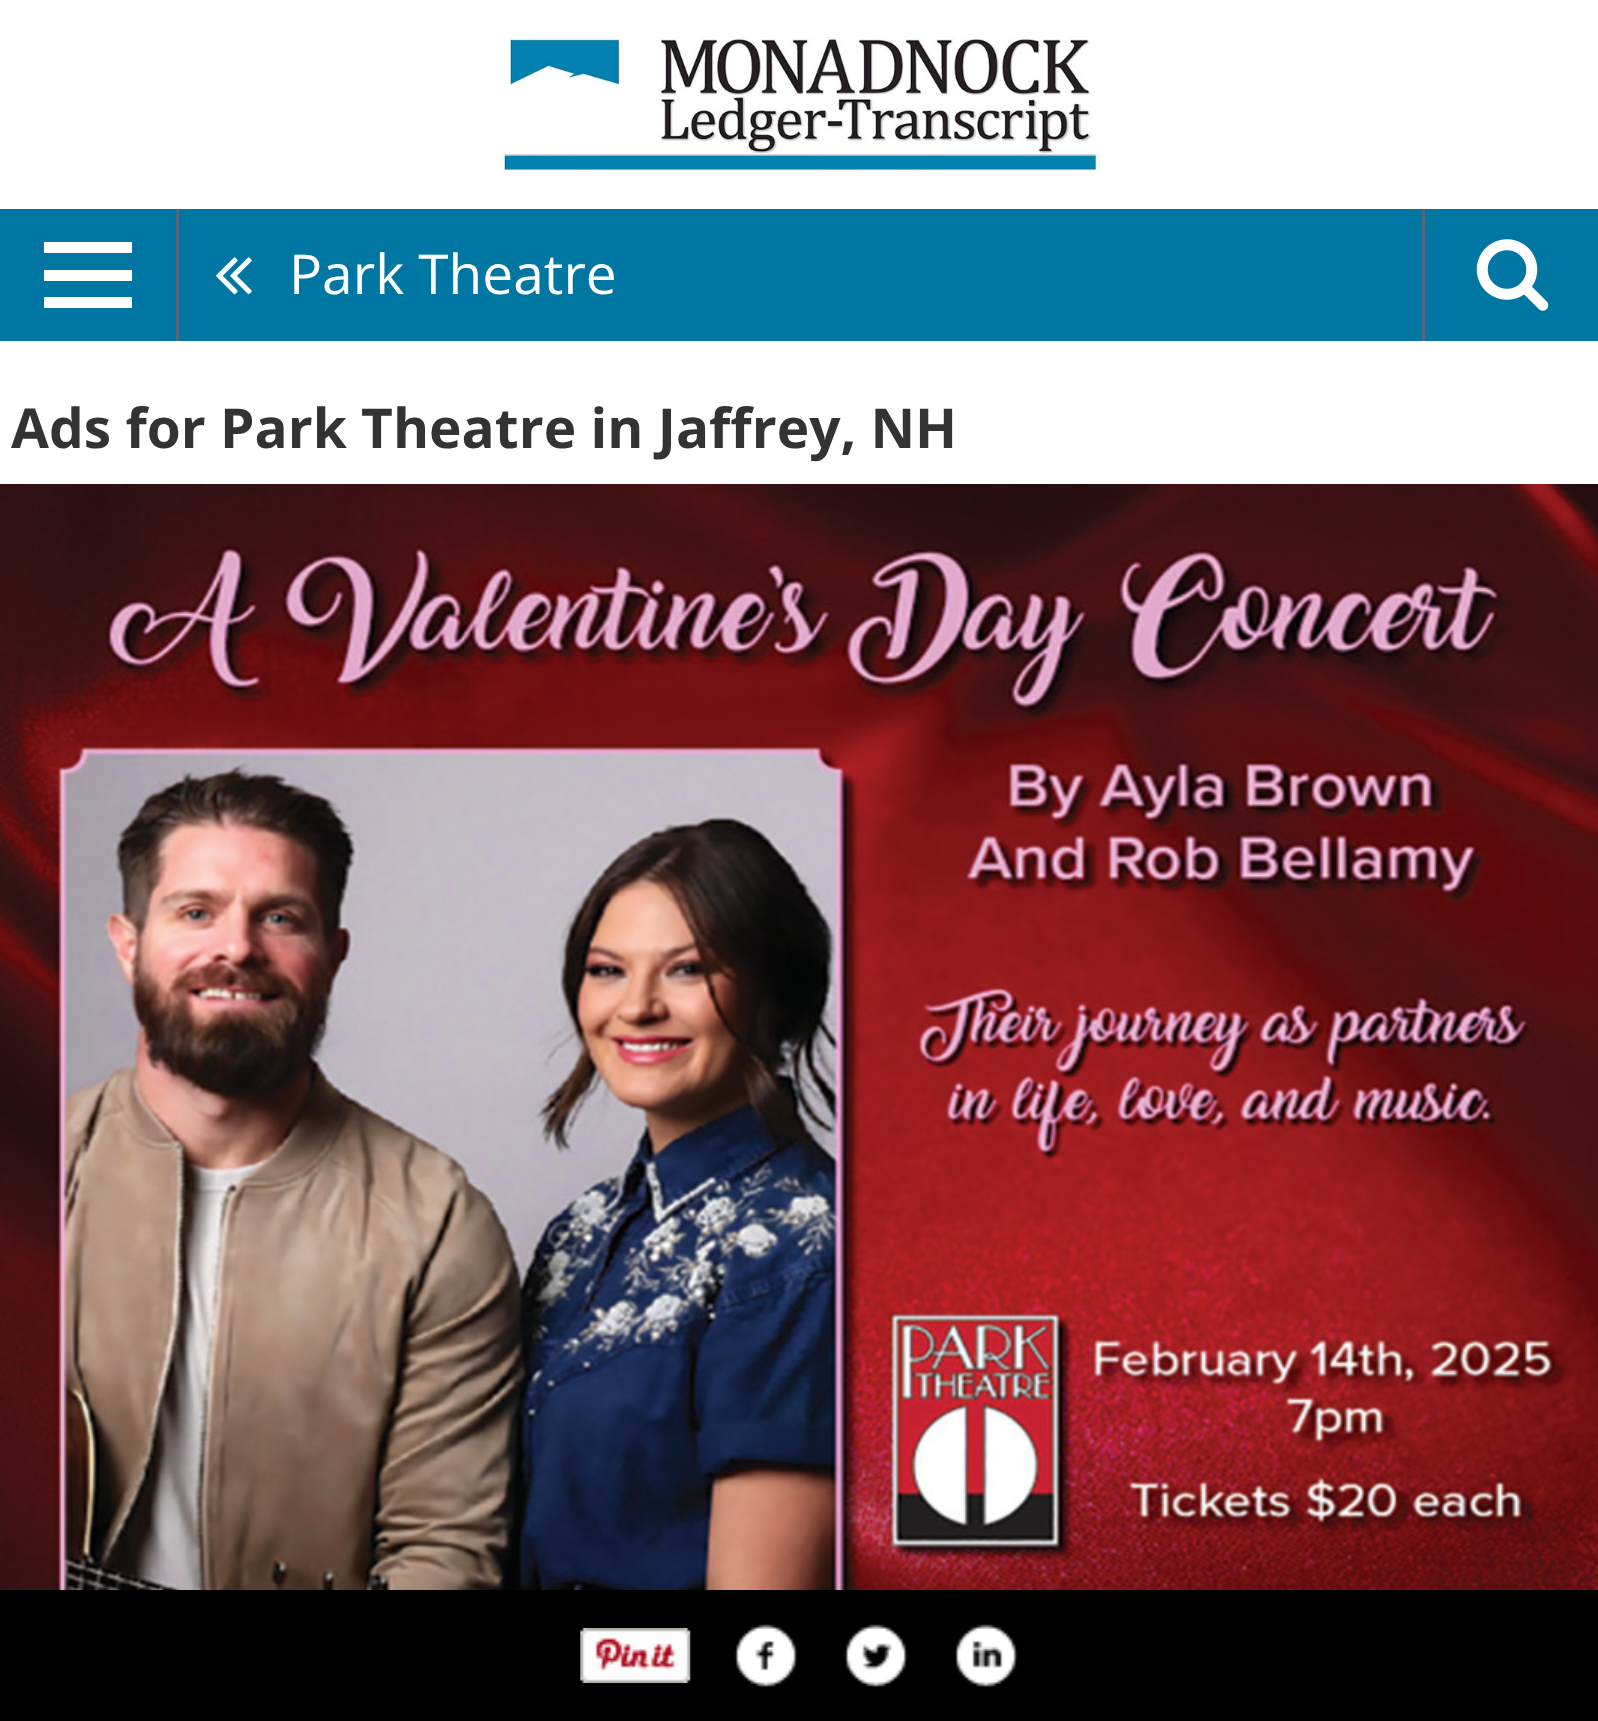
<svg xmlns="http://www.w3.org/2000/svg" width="1598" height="1721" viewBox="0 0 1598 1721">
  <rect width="100%" height="100%" fill="#fff"/>
  <image x="500" y="36" width="600" height="137" href="img/1.png"/>
  <path d="M0 209h1598v132H0z" fill="#0077a3"/>
  <path d="M44 242h88v11H44z" fill="#fff"/>
  <path d="M44 270h88v11H44z" fill="#fff"/>
  <path d="M44 297h88v11H44z" fill="#fff"/>
  <path d="M1422 209h3v132H1422z" fill="#57677c"/>
  <path d="M176 209h3v132H176z" fill="#57677c"/>
  <image x="216" y="257" width="36" height="38" href="img/2.png"/>
  <image x="1476" y="239" width="73" height="72" href="img/3.png"/>
  <image x="0" y="484" width="1598" height="1106" href="img/4.png"/>
  <path d="M0 1590h1598v131H0z" fill="#000"/>
  <image x="580" y="1628" width="111" height="55" href="img/5.png"/>
  <image x="734" y="1624" width="64" height="63" href="img/6.png"/>
  <image x="844" y="1624" width="64" height="63" href="img/7.png"/>
  <image x="954" y="1624" width="64" height="63" href="img/8.png"/>
  <text x="289" y="294" font-family="Open Sans" font-size="55" fill="#fff">Park Theatre</text>
  <text x="11" y="448" font-family="Open Sans" font-size="55" font-weight="bold" fill="#333">Ads for Park Theatre in Jaffrey, NH</text>
</svg>
